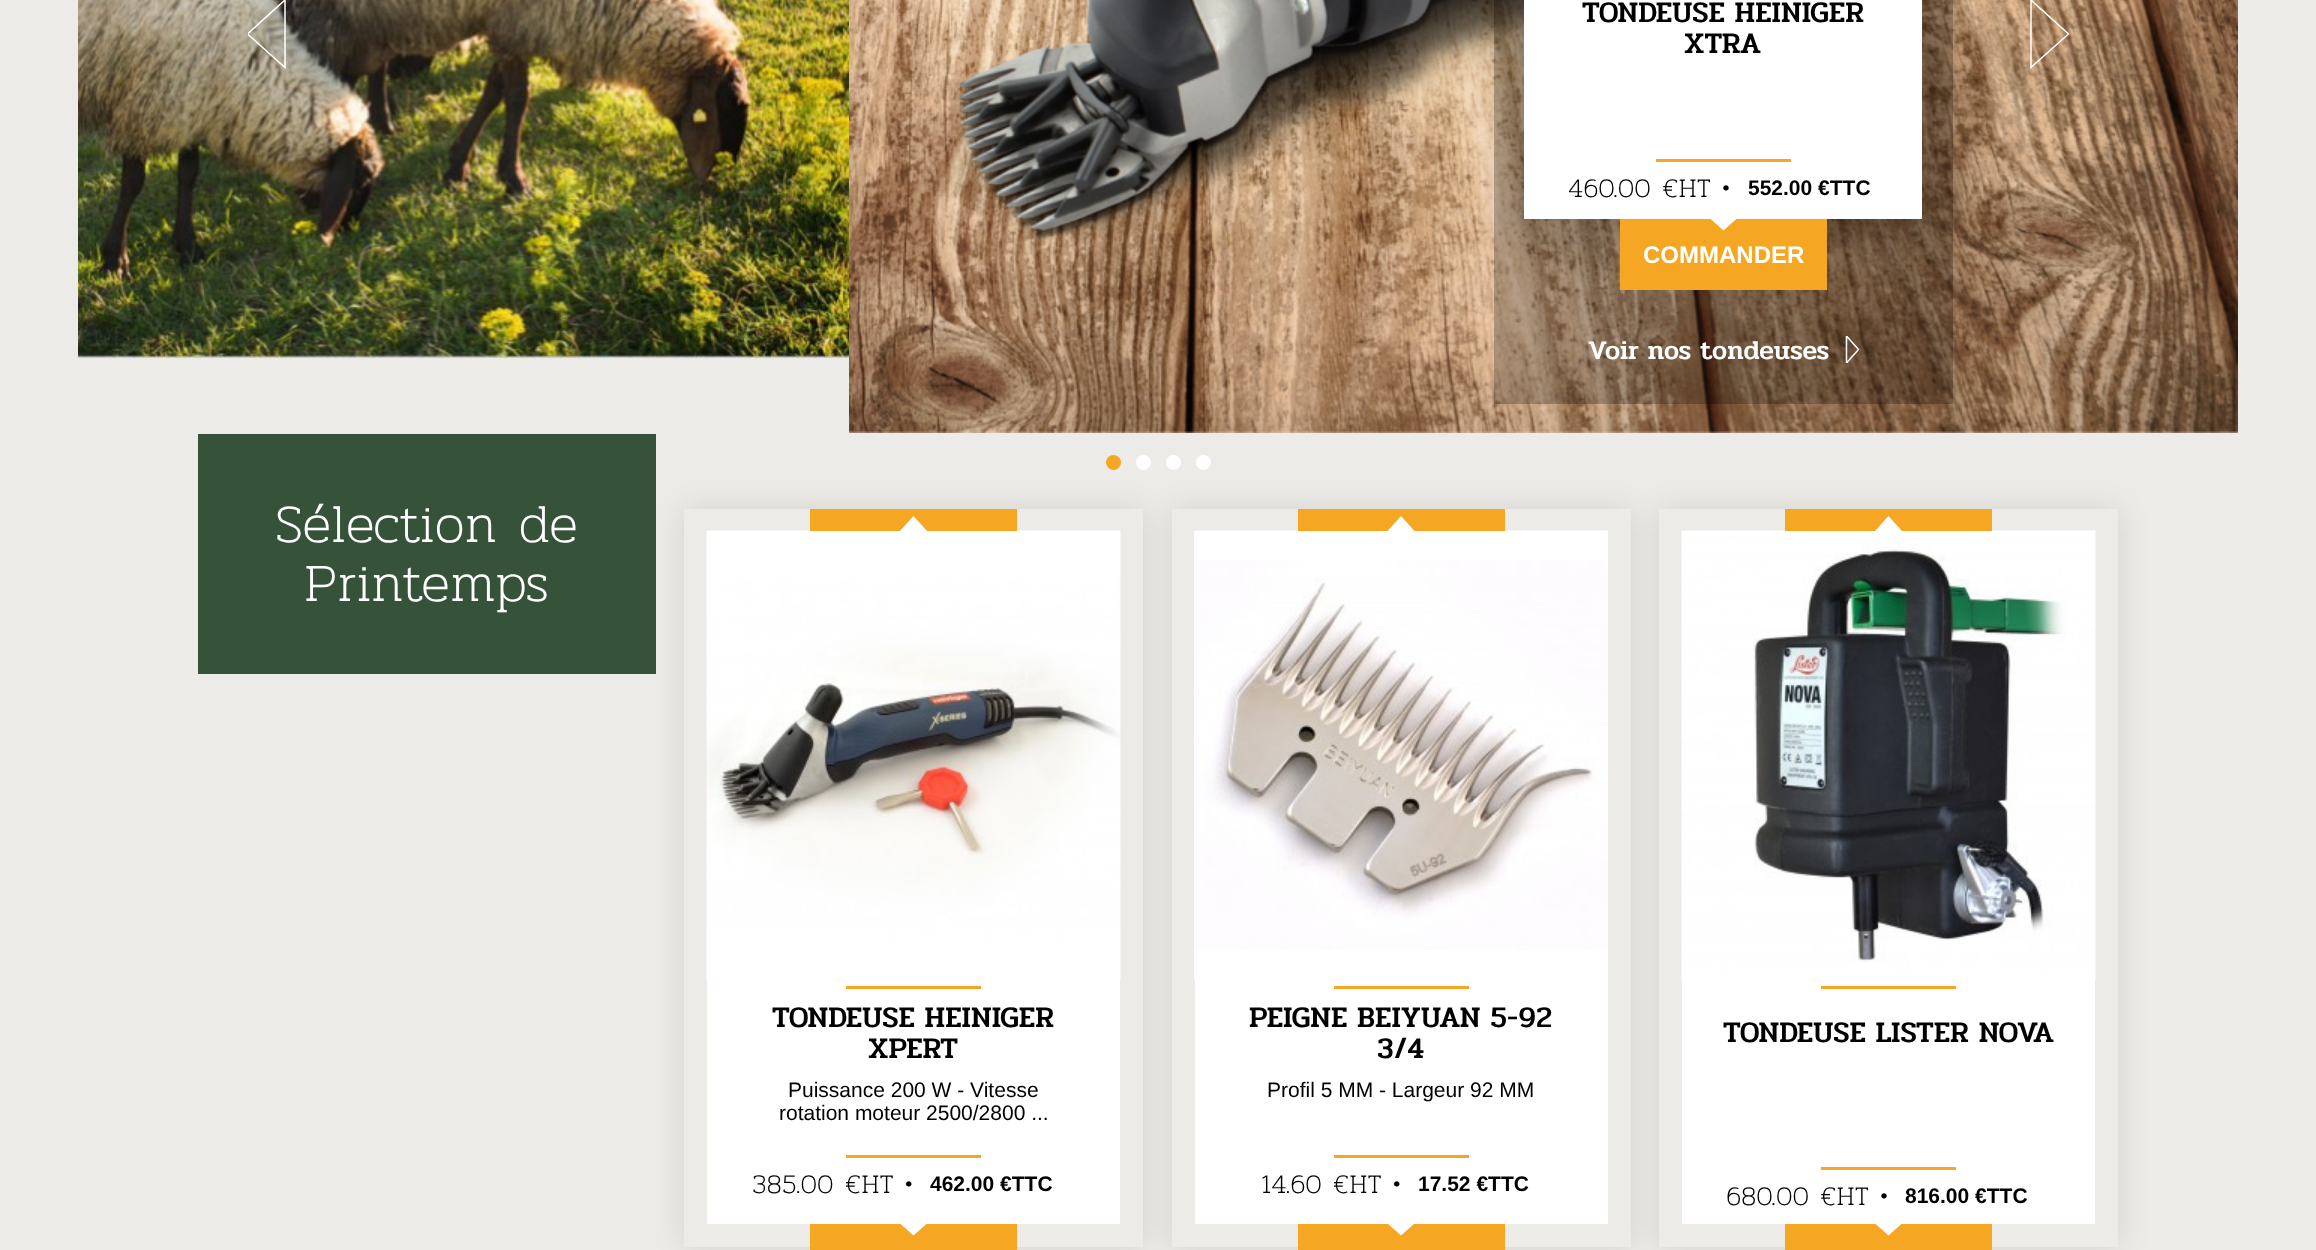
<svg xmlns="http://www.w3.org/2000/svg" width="2316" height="1250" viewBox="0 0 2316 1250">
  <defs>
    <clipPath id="clip1"><path d="M248 0h39v69H248z"/></clipPath>
    <clipPath id="clip2"><path d="M1845 336h15v27H1845z"/></clipPath>
  </defs>
  <rect width="100%" height="100%" fill="#ecebe7"/>
  <image x="78" y="0" width="771" height="358" href="img/1.png"/>
  <g clip-path="url(#clip1)">
    <path d="M247.5 34L285 0V67.5Z" fill="none" stroke="#fff" stroke-width="1.5"/>
  </g>
  <image x="849" y="0" width="1389" height="433" href="img/2.png"/>
  <path d="M1494 0h459v404H1494z" fill="#0000003d"/>
  <path d="M1524 -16h398v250H1524z" fill="#0000004d" filter="blur(30px)"/>
  <path d="M1524 0h398v219H1524z" fill="#fff"/>
  <path d="M1656 159h135v3H1656z" fill="#f5a623"/>
  <path d="M1620 219h207v71H1620z" fill="#f5a623"/>
  <path d="M1723.5 230.5L1737 218.5H1710Z" fill="#fff" fill-rule="evenodd"/>
  <g clip-path="url(#clip2)">
    <path d="M1858.5 349.5L1846.5 363V336Z" fill="none" stroke="#fff" stroke-width="1.5"/>
  </g>
  <path d="M2068.5 34L2031 67.5V0Z" fill="none" stroke="#fff" stroke-width="1.5"/>
  <circle cx="1113.5" cy="462.5" r="7.5" fill="#f5a623"/>
  <circle cx="1143.5" cy="462.5" r="7.5" fill="#fff"/>
  <circle cx="1173.5" cy="462.5" r="7.5" fill="#fff"/>
  <circle cx="1203.5" cy="462.5" r="7.5" fill="#fff"/>
  <path d="M198 434h458v240H198z" fill="#365239"/>
  <path d="M684 509h459v738H684z" fill="#0000001a" filter="blur(15px)"/>
  <path d="M707 980h413v244H707z" fill="#fff"/>
  <path d="M695.5 520.5h436v715H695.5z" fill="none" stroke="#ecebe7" stroke-width="23"/>
  <image x="706" y="530" width="415" height="451" href="img/3.png"/>
  <path d="M810 509h207v22H810z" fill="#f5a623"/>
  <path d="M913.5 516L900 531H927Z" fill="#fff" fill-rule="evenodd"/>
  <path d="M846 986h135v3H846z" fill="#f5a623"/>
  <path d="M846 1155h135v3H846z" fill="#f5a623"/>
  <path d="M810 1224h207v26H810z" fill="#f5a623"/>
  <path d="M913.5 1235.5L927 1223.5H900Z" fill="#fff" fill-rule="evenodd"/>
  <path d="M1172 509h459v738H1172z" fill="#0000001a" filter="blur(15px)"/>
  <path d="M1195 980h413v244H1195z" fill="#fff"/>
  <path d="M1183.5 520.5h436v715H1183.5z" fill="none" stroke="#ecebe7" stroke-width="23"/>
  <image x="1194" y="530" width="414" height="451" href="img/4.png"/>
  <path d="M1298 509h207v22H1298z" fill="#f5a623"/>
  <path d="M1401 516L1387.5 531H1414.5Z" fill="#fff" fill-rule="evenodd"/>
  <path d="M1334 986h135v3H1334z" fill="#f5a623"/>
  <path d="M1334 1155h135v3H1334z" fill="#f5a623"/>
  <path d="M1298 1224h207v26H1298z" fill="#f5a623"/>
  <path d="M1401 1235.5L1414.5 1223.5H1387.5Z" fill="#fff" fill-rule="evenodd"/>
  <path d="M1659 509h459v738H1659z" fill="#0000001a" filter="blur(15px)"/>
  <path d="M1682 980h413v244H1682z" fill="#fff"/>
  <path d="M1670.5 520.5h436v715H1670.5z" fill="none" stroke="#ecebe7" stroke-width="23"/>
  <image x="1681" y="530" width="415" height="451" href="img/5.png"/>
  <path d="M1785 509h207v22H1785z" fill="#f5a623"/>
  <path d="M1888.5 516L1875 531H1902Z" fill="#fff" fill-rule="evenodd"/>
  <path d="M1821 986h135v3H1821z" fill="#f5a623"/>
  <path d="M1821 1167h135v3H1821z" fill="#f5a623"/>
  <path d="M1785 1224h207v26H1785z" fill="#f5a623"/>
  <path d="M1888.5 1235.5L1902 1223.5H1875Z" fill="#fff" fill-rule="evenodd"/>
  <g font-family="Pridi" font-size="30" font-weight="500" fill="#000">
    <text x="1582" y="22">TONDEUSE HEINIGER</text>
    <text x="1684" y="53">XTRA</text>
  </g>
  <text x="1568" y="197" font-family="Pridi" font-size="27" font-weight="200" fill="#000">460.00 €HT •</text>
  <text x="1748" y="195" font-family="Liberation Sans" font-size="21" font-weight="bold" fill="#000">552.00 €TTC</text>
  <text x="1643" y="263" font-family="Liberation Sans" font-size="24" font-weight="bold" fill="#fff">COMMANDER</text>
  <text x="1588" y="359" font-family="Pridi" font-size="27" font-weight="500" fill="#fff">Voir nos tondeuses</text>
  <g font-family="Pridi" font-size="54" font-weight="200" fill="#fff">
    <text x="275" y="542">Sélection de</text>
    <text x="304" y="601">Printemps</text>
  </g>
  <g font-family="Pridi" font-size="30" font-weight="500" fill="#000">
    <text x="772" y="1027">TONDEUSE HEINIGER</text>
    <text x="868" y="1058">XPERT</text>
  </g>
  <g font-family="Liberation Sans" font-size="21" fill="#000">
    <text x="788" y="1097">Puissance 200 W - Vitesse</text>
    <text x="779" y="1120">rotation moteur 2500/2800 ...</text>
  </g>
  <text x="752" y="1193" font-family="Pridi" font-size="27" font-weight="200" fill="#000">385.00 €HT •</text>
  <text x="930" y="1191" font-family="Liberation Sans" font-size="21" font-weight="bold" fill="#000">462.00 €TTC</text>
  <g font-family="Pridi" font-size="30" font-weight="500" fill="#000">
    <text x="1249" y="1027">PEIGNE BEIYUAN 5-92</text>
    <text x="1377" y="1058">3/4</text>
  </g>
  <text x="1267" y="1097" font-family="Liberation Sans" font-size="21" fill="#000">Profil 5 MM - Largeur 92 MM</text>
  <text x="1261" y="1193" font-family="Pridi" font-size="27" font-weight="200" fill="#000">14.60 €HT •</text>
  <text x="1418" y="1191" font-family="Liberation Sans" font-size="21" font-weight="bold" fill="#000">17.52 €TTC</text>
  <text x="1723" y="1042" font-family="Pridi" font-size="30" font-weight="500" fill="#000">TONDEUSE LISTER NOVA</text>
  <text x="1726" y="1205" font-family="Pridi" font-size="27" font-weight="200" fill="#000">680.00 €HT •</text>
  <text x="1905" y="1203" font-family="Liberation Sans" font-size="21" font-weight="bold" fill="#000">816.00 €TTC</text>
</svg>
